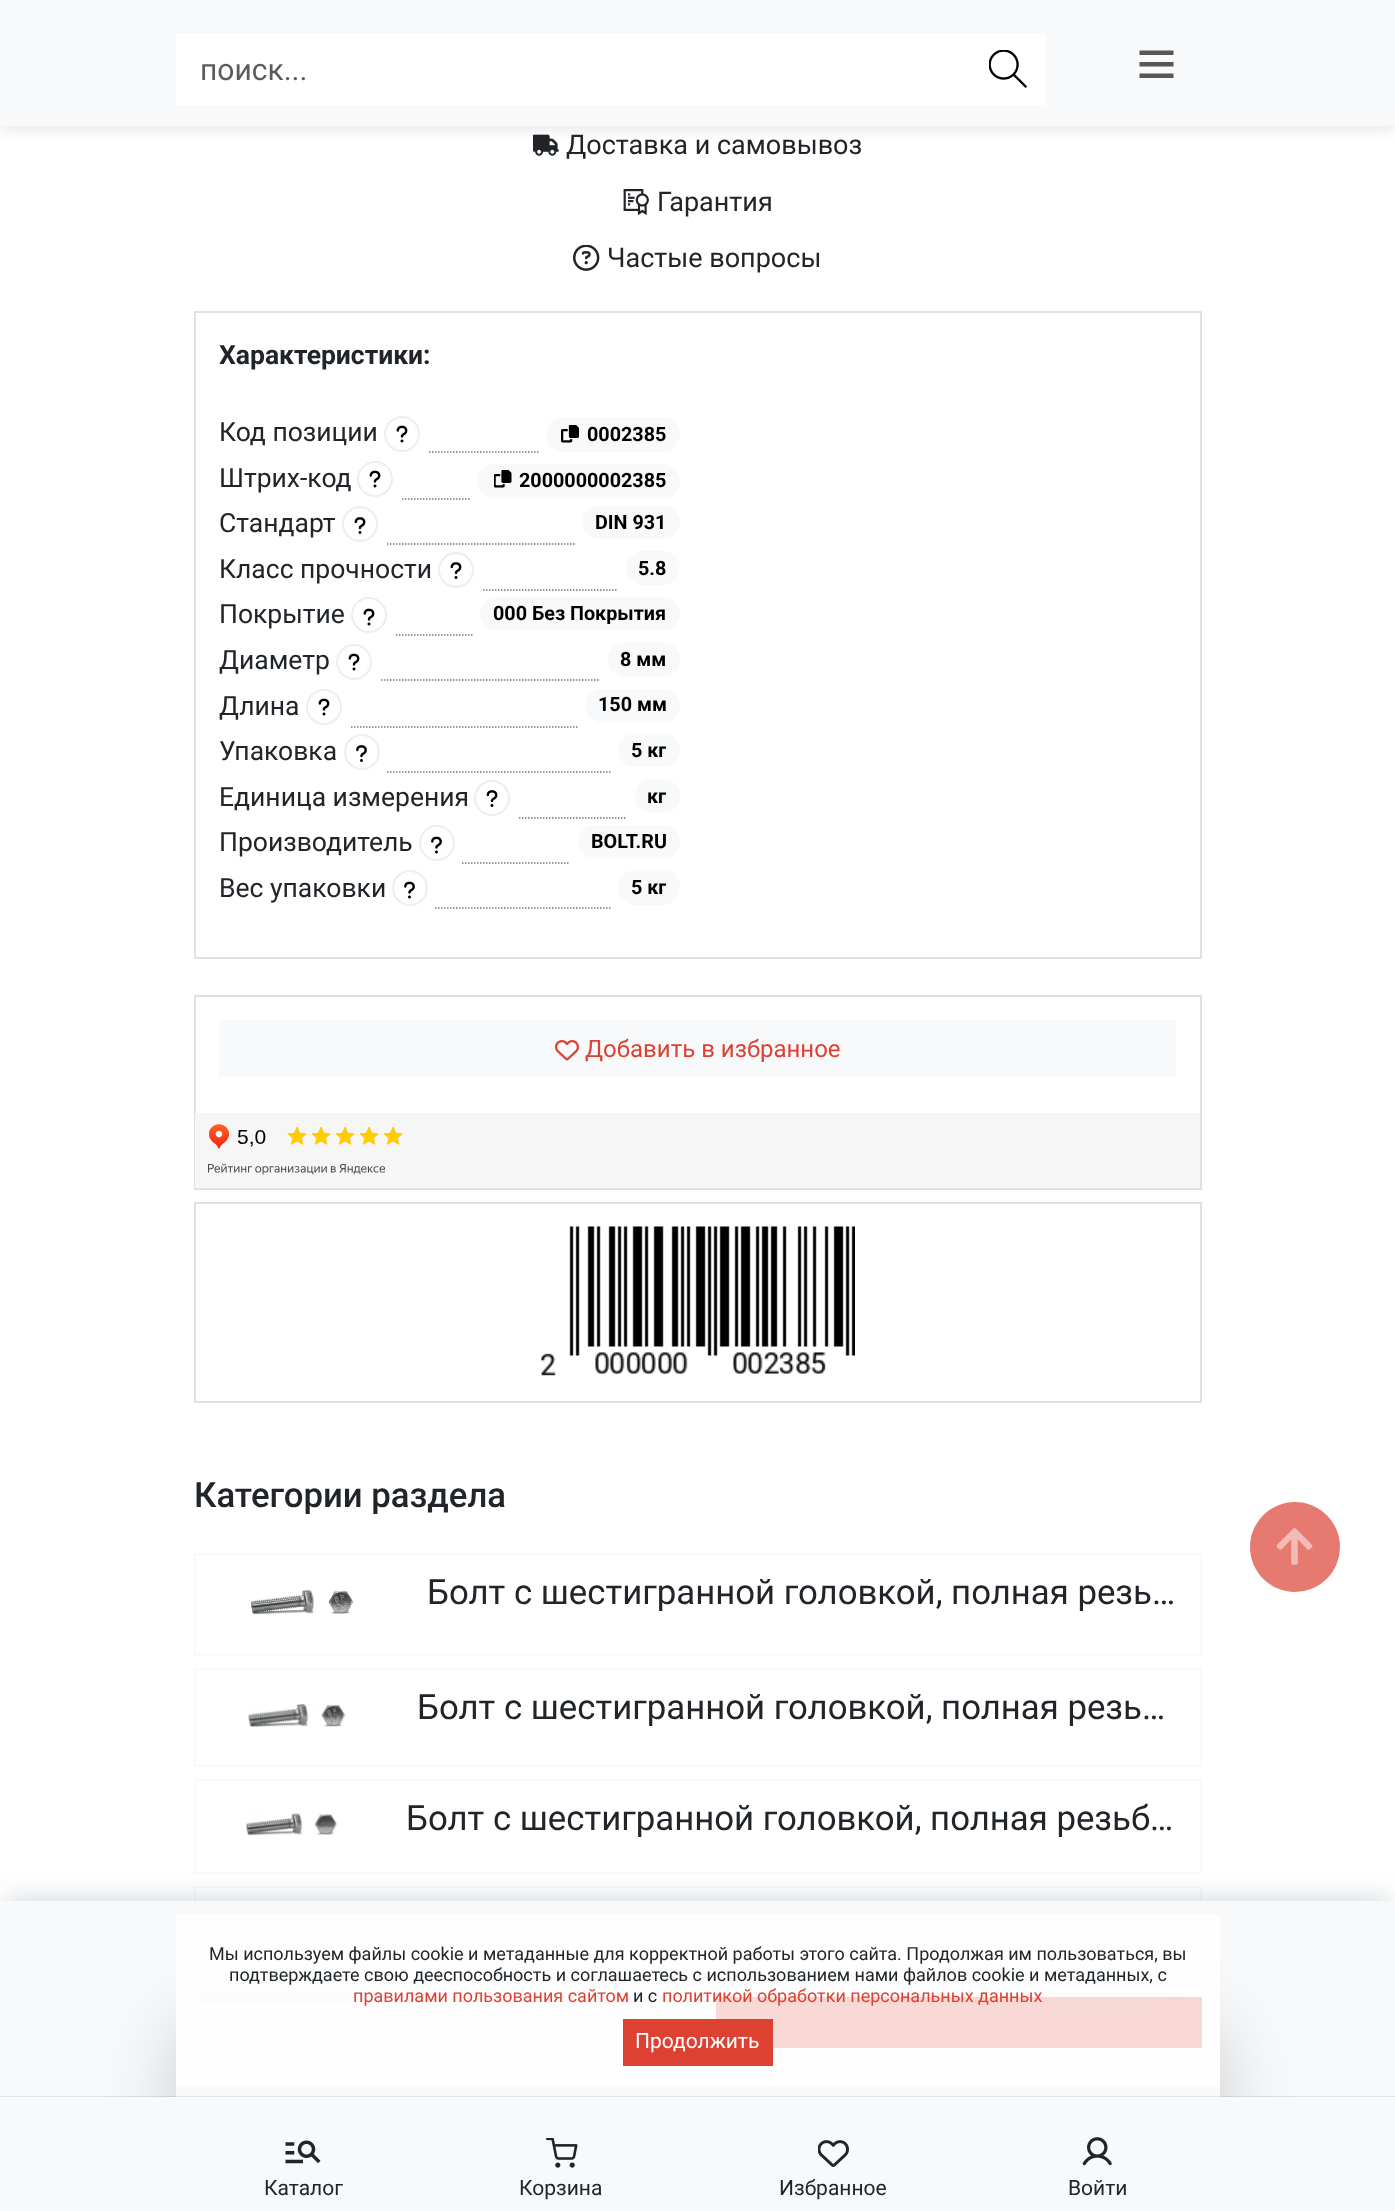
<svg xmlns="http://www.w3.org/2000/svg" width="1395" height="2211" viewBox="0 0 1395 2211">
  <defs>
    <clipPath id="clip1"><path d="M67 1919H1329V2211H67ZM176 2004H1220V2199H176Z" clip-rule="evenodd"/></clipPath>
    <clipPath id="clip2"><path d="M632 741h34v20H632z"/></clipPath>
    <clipPath id="clip3"><path d="M647 786h19v20H647z"/></clipPath>
    <clipPath id="clip4"><path d="M632 878h34v19H632z"/></clipPath>
  </defs>
  <rect width="100%" height="100%" fill="#fff"/>
  <image x="533" y="134" width="26" height="22" href="img/2.png"/>
  <path d="M0 3h1395v126H0z" fill="#0000001a" filter="blur(7.5px)"/>
  <path d="M0 0h1395v126H0z" fill="#f8f9fa"/>
  <path d="M176 33h870v72H176z" fill="#fff"/>
  <image x="989" y="50" width="39" height="38" href="img/1.png"/>
  <path d="M1173.5 50.5V55H1139.5V50.5ZM1139.5 66.5H1173.5V62H1139.5ZM1139.5 78H1173.5V73.5H1139.5Z" fill="#575758"/>
  <image x="623" y="189" width="26" height="26" href="img/3.png"/>
  <image x="573" y="245" width="27" height="26" href="img/4.png"/>
  <path d="M195 312h1006v646H195z" fill="none" stroke="#dee2e6" stroke-width="2"/>
  <path d="M219 452H679.5" fill="none" stroke="#777" stroke-width="1.5" stroke-dasharray="1.5 1.5"/>
  <path d="M219 451h209v2H219z" fill="#fff"/>
  <circle cx="402" cy="434" r="17" fill="none" stroke="#eee" stroke-width="2"/>
  <image x="396" y="425" width="12" height="18" href="img/5.png"/>
  <path d="M540 451h140v1H540z" fill="#fff"/>
  <rect x="546" y="417" width="134" height="35" rx="17.5" fill="#f8f9fa"/>
  <image x="561" y="425" width="18" height="18" href="img/6.png"/>
  <path d="M539 452h141v1H539z" fill="#fff"/>
  <path d="M219 499H679.5" fill="none" stroke="#777" stroke-width="1.5" stroke-dasharray="1.5 1.5"/>
  <circle cx="375" cy="479" r="17" fill="none" stroke="#eee" stroke-width="2"/>
  <image x="369" y="470" width="12" height="18" href="img/5.png"/>
  <path d="M219 498h182v2H219z" fill="#fff"/>
  <rect x="477" y="464" width="203" height="34" rx="17" fill="#f8f9fa"/>
  <image x="494" y="470" width="18" height="18" href="img/7.png"/>
  <path d="M470 498h210v2H470z" fill="#fff"/>
  <path d="M219 544H679.5" fill="none" stroke="#777" stroke-width="1.5" stroke-dasharray="1.5 1.5"/>
  <circle cx="360" cy="524" r="17" fill="none" stroke="#eee" stroke-width="2"/>
  <image x="354" y="517" width="12" height="17" href="img/8.png"/>
  <path d="M219 543h167v2H219z" fill="#fff"/>
  <rect x="582" y="506" width="98" height="33" rx="16.5" fill="#f8f9fa"/>
  <path d="M575 543h105v2H575z" fill="#fff"/>
  <path d="M219 590H679.5" fill="none" stroke="#777" stroke-width="1.5" stroke-dasharray="1.5 1.5"/>
  <path d="M219 589h263v2H219z" fill="#fff"/>
  <circle cx="456" cy="570" r="17" fill="none" stroke="#eee" stroke-width="2"/>
  <image x="450" y="562" width="12" height="17" href="img/8.png"/>
  <path d="M618 589h62v2H618z" fill="#fff"/>
  <rect x="626" y="551" width="54" height="34" rx="17" fill="#f8f9fa"/>
  <path d="M219 635H679.5" fill="none" stroke="#777" stroke-width="1.5" stroke-dasharray="1.5 1.5"/>
  <path d="M219 634h176v2H219z" fill="#fff"/>
  <circle cx="369" cy="615" r="17" fill="none" stroke="#eee" stroke-width="2"/>
  <image x="363" y="608" width="12" height="18" href="img/5.png"/>
  <path d="M474 634h206v1H474z" fill="#fff"/>
  <rect x="480" y="597" width="200" height="33" rx="16.5" fill="#f8f9fa"/>
  <path d="M473 635h207v1H473z" fill="#fff"/>
  <path d="M219 680H679.5" fill="none" stroke="#777" stroke-width="1.5" stroke-dasharray="1.5 1.5"/>
  <path d="M219 679h161v2H219z" fill="#fff"/>
  <circle cx="354" cy="662" r="17" fill="none" stroke="#eee" stroke-width="2"/>
  <image x="348" y="653" width="12" height="18" href="img/5.png"/>
  <path d="M600 679h80v2H600z" fill="#fff"/>
  <rect x="608" y="642" width="72" height="35" rx="17.5" fill="#f8f9fa"/>
  <path d="M219 727H679.5" fill="none" stroke="#777" stroke-width="1.5" stroke-dasharray="1.5 1.5"/>
  <circle cx="324" cy="707" r="17" fill="none" stroke="#eee" stroke-width="2"/>
  <image x="318" y="698" width="12" height="18" href="img/5.png"/>
  <path d="M219 726h131v2H219z" fill="#fff"/>
  <rect x="585" y="689" width="95" height="33" rx="16.5" fill="#f8f9fa"/>
  <path d="M578 726h102v2H578z" fill="#fff"/>
  <path d="M219 772H679.5" fill="none" stroke="#777" stroke-width="1.5" stroke-dasharray="1.5 1.5"/>
  <circle cx="362" cy="752" r="17" fill="none" stroke="#eee" stroke-width="2"/>
  <image x="356" y="745" width="11" height="17" href="img/9.png"/>
  <path d="M219 771h168v2H219z" fill="#fff"/>
  <rect x="618" y="734" width="62" height="33" rx="16.5" fill="#f8f9fa"/>
  <path d="M611 771h69v2H611z" fill="#fff"/>
  <path d="M219 818H679.5" fill="none" stroke="#777" stroke-width="1.5" stroke-dasharray="1.5 1.5"/>
  <path d="M219 817h299v2H219z" fill="#fff"/>
  <circle cx="492" cy="798" r="17" fill="none" stroke="#eee" stroke-width="2"/>
  <image x="486" y="790" width="12" height="17" href="img/8.png"/>
  <path d="M627 817h53v2H627z" fill="#fff"/>
  <rect x="635" y="779" width="45" height="34" rx="17" fill="#f8f9fa"/>
  <path d="M219 863H679.5" fill="none" stroke="#777" stroke-width="1.5" stroke-dasharray="1.5 1.5"/>
  <path d="M219 862h242v1H219z" fill="#fff"/>
  <circle cx="437" cy="843" r="17" fill="none" stroke="#eee" stroke-width="2"/>
  <image x="431" y="836" width="11" height="18" href="img/10.png"/>
  <path d="M219 863h243v1H219z" fill="#fff"/>
  <path d="M570 862h110v2H570z" fill="#fff"/>
  <rect x="578" y="825" width="102" height="33" rx="16.5" fill="#f8f9fa"/>
  <path d="M219 908H679.5" fill="none" stroke="#777" stroke-width="1.5" stroke-dasharray="1.5 1.5"/>
  <path d="M219 907h215v1H219z" fill="#fff"/>
  <circle cx="410" cy="888" r="17" fill="none" stroke="#eee" stroke-width="2"/>
  <image x="404" y="881" width="11" height="18" href="img/10.png"/>
  <path d="M219 908h216v1H219z" fill="#fff"/>
  <path d="M612 907h68v1H612z" fill="#fff"/>
  <rect x="618" y="870" width="62" height="35" rx="17.5" fill="#f8f9fa"/>
  <path d="M611 908h69v1H611z" fill="#fff"/>
  <path d="M195 996h1006v193H195z" fill="none" stroke="#dee2e6" stroke-width="2"/>
  <path d="M219 1020h957v57H219z" fill="#f8f9fa"/>
  <image x="555" y="1040" width="24" height="21" href="img/11.png"/>
  <path d="M195 1113h1005v75H195z" fill="#f6f6f6"/>
  <image x="208" y="1124" width="195" height="51" href="img/12.png"/>
  <path d="M195 1780h1006v93H195z" fill="none" stroke="#f8f9fa" stroke-width="2"/>
  <path d="M195 1887h1006v98H195z" fill="none" stroke="#f8f9fa" stroke-width="2"/>
  <path d="M5 1899h1386v189H5z" fill="#223c5033" filter="blur(13px)"/>
  <path d="M0 1901h1395v195H0z" fill="#f8f9fa"/>
  <path d="M0 2096h1395v1H0z" fill="#dee2e6"/>
  <path d="M716 1997h486v51H716z" fill="#dd4132"/>
  <path d="M195 1203h1006v199H195z" fill="none" stroke="#dee2e6" stroke-width="2"/>
  <image x="540" y="1226" width="315" height="150" href="img/13.png"/>
  <path d="M195 1554h1006v101H195z" fill="none" stroke="#f8f9fa" stroke-width="2"/>
  <image x="250" y="1590" width="103" height="25" href="img/14.png"/>
  <path d="M195 1669h1006v97H195z" fill="none" stroke="#f8f9fa" stroke-width="2"/>
  <image x="248" y="1704" width="98" height="23" href="img/15.png"/>
  <image x="246" y="1813" width="92" height="23" href="img/16.png"/>
  <circle cx="1295" cy="1547" r="45" fill="#e77a70"/>
  <image x="1276" y="1528" width="37" height="37" href="img/17.png"/>
  <g clip-path="url(#clip1)">
    <path d="M176 2028h1044v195H176z" fill="#0000002e" filter="blur(36px)"/>
  </g>
  <path d="M176 1914h1044v173H176z" fill="#ffffffcc"/>
  <path d="M623 2019h150v47H623z" fill="#dd4132"/>
  <path d="M0 2097h1395v114H0z" fill="#f8f9fa"/>
  <image x="285" y="2140" width="36" height="24" href="img/18.png"/>
  <image x="546" y="2138" width="32" height="30" href="img/19.png"/>
  <image x="818" y="2140" width="31" height="27" href="img/20.png"/>
  <image x="1082" y="2137" width="30" height="29" href="img/21.png"/>
  <text x="200" y="80" font-family="Roboto" font-size="30" fill="#595c5f">поиск...</text>
  <g font-family="Roboto" font-size="27" fill="#212529">
    <text x="566" y="154">Доставка и самовывоз</text>
    <text x="657" y="211">Гарантия</text>
    <text x="607" y="267">Частые вопросы</text>
  </g>
  <text x="219" y="364" font-family="Roboto" font-size="26.5" font-weight="bold" fill="#212529">Характеристики:</text>
  <text x="219" y="441" font-family="Roboto" font-size="26.5" fill="#212529">Код позиции</text>
  <text x="587" y="441" font-family="Roboto" font-size="19.75" font-weight="bold" fill="#000">0002385</text>
  <text x="219" y="487" font-family="Roboto" font-size="26.5" fill="#212529">Штрих-код</text>
  <text x="519" y="487" font-family="Roboto" font-size="19.75" font-weight="bold" fill="#000">2000000002385</text>
  <text x="219" y="532" font-family="Roboto" font-size="26.5" fill="#212529">Стандарт</text>
  <text x="595" y="529" font-family="Roboto" font-size="19.75" font-weight="bold" fill="#000">DIN 931</text>
  <text x="219" y="578" font-family="Roboto" font-size="26.5" fill="#212529">Класс прочности</text>
  <text x="638" y="575" font-family="Roboto" font-size="19.75" font-weight="bold" fill="#000">5.8</text>
  <text x="219" y="623" font-family="Roboto" font-size="26.5" fill="#212529">Покрытие</text>
  <text x="493" y="620" font-family="Roboto" font-size="19.75" font-weight="bold" fill="#000">000 Без Покрытия</text>
  <text x="219" y="669" font-family="Roboto" font-size="26.5" fill="#212529">Диаметр</text>
  <text x="620" y="666" font-family="Roboto" font-size="19.75" font-weight="bold" fill="#000">8 мм</text>
  <text x="219" y="715" font-family="Roboto" font-size="26.5" fill="#212529">Длина</text>
  <text x="598" y="711" font-family="Roboto" font-size="19.75" font-weight="bold" fill="#000">150 мм</text>
  <text x="219" y="760" font-family="Roboto" font-size="26.5" fill="#212529">Упаковка</text>
  <g clip-path="url(#clip2)">
    <text x="631" y="757" font-family="Roboto" font-size="19.75" font-weight="bold" fill="#000">5 кг</text>
  </g>
  <text x="219" y="806" font-family="Roboto" font-size="26.5" fill="#212529">Единица измерения</text>
  <g clip-path="url(#clip3)">
    <text x="647" y="803" font-family="Roboto" font-size="19.75" font-weight="bold" fill="#000">кг</text>
  </g>
  <text x="219" y="851" font-family="Roboto" font-size="26.5" fill="#212529">Производитель</text>
  <text x="591" y="848" font-family="Roboto" font-size="19.75" font-weight="bold" fill="#000">BOLT.RU</text>
  <text x="219" y="897" font-family="Roboto" font-size="26.5" fill="#212529">Вес упаковки</text>
  <g clip-path="url(#clip4)">
    <text x="631" y="894" font-family="Roboto" font-size="19.75" font-weight="bold" fill="#000">5 кг</text>
  </g>
  <text x="585" y="1057" font-family="Roboto" font-size="24" fill="#dd4132">Добавить в избранное</text>
  <text x="194" y="1507" font-family="Roboto" font-size="34.75" font-weight="500" fill="#212529">Категории раздела</text>
  <g font-family="Roboto" font-size="34.75" fill="#212529">
    <text x="427" y="1604">Болт с шестигранной головкой, полная резь…</text>
    <text x="417" y="1719">Болт с шестигранной головкой, полная резь…</text>
    <text x="406" y="1830">Болт с шестигранной головкой, полная резьб…</text>
  </g>
  <g font-family="Roboto" font-size="18" fill="#212529">
    <text x="209" y="1960">Мы используем файлы cookie и метаданные для корректной работы этого сайта. Продолжая им пользоваться, вы</text>
    <text x="229" y="1981">подтверждаете свою дееспособность и соглашаетесь с использованием нами файлов cookie и метаданных, с</text>
  </g>
  <text x="353" y="2002" font-family="Roboto" font-size="18" fill="#dd4132">правилами пользования сайтом</text>
  <text x="633" y="2002" font-family="Roboto" font-size="18" fill="#212529">и с</text>
  <text x="662" y="2002" font-family="Roboto" font-size="18" fill="#dd4132">политикой обработки персональных данных</text>
  <text x="635" y="2048" font-family="Roboto" font-size="21" fill="#fff">Продолжить</text>
  <g font-family="Roboto" font-size="21" fill="#212529">
    <text x="264" y="2195">Каталог</text>
    <text x="519" y="2195">Корзина</text>
    <text x="779" y="2195">Избранное</text>
    <text x="1068" y="2195">Войти</text>
  </g>
</svg>
